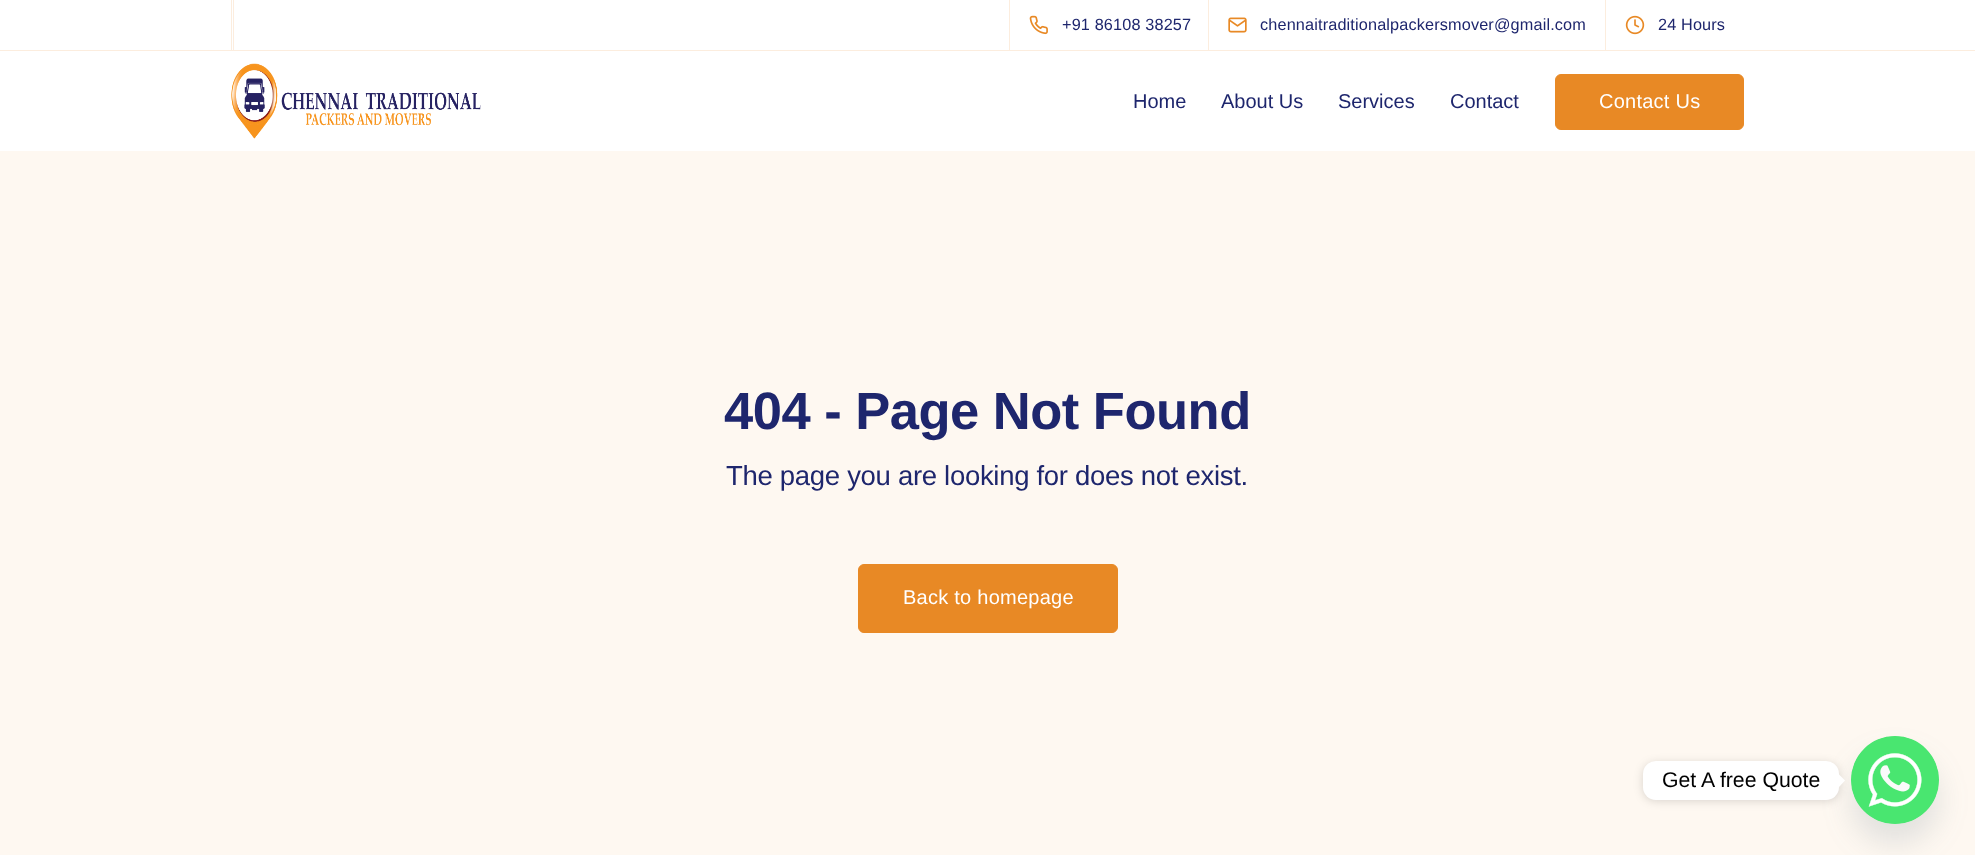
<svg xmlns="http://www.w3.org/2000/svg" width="1975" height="855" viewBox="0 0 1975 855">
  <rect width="100%" height="100%" fill="#fef8f1"/>
  <path d="M0 0h1975v50H0z" fill="#fff"/>
  <path d="M0 50h1975v1H0z" fill="#fcedde"/>
  <path d="M233 0h1v50H233z" fill="#fcedde"/>
  <path d="M231 0h1v50H231z" fill="#fcedde"/>
  <path d="M1009 0h1v50H1009z" fill="#fcedde"/>
  <path d="M1208 0h1v50H1208z" fill="#fcedde"/>
  <image x="1029" y="15" width="19" height="20" href="img/1.png"/>
  <path d="M1605 0h1v50H1605z" fill="#fcedde"/>
  <image x="1228" y="17" width="19" height="16" href="img/2.png"/>
  <image x="1625" y="15" width="20" height="20" href="img/3.png"/>
  <path d="M0 51h1975v100H0z" fill="#fff"/>
  <image x="231" y="63" width="250" height="76" href="img/4.png"/>
  <rect x="1555.5" y="74.5" width="188" height="55" rx="5.5" fill="#e88925" stroke="#e88925"/>
  <rect x="858.5" y="564.5" width="259" height="68" rx="5.5" fill="#e88925" stroke="#e88925"/>
  <rect x="1851" y="756" width="88" height="88" rx="44" fill="#49687e29" filter="blur(15px)"/>
  <circle cx="1895" cy="780" r="44" fill="#49e670"/>
  <image x="1851" y="736" width="88" height="88" href="img/5.png"/>
  <rect x="1643" y="763" width="196" height="38" rx="13" fill="#00000026" filter="blur(5px)"/>
  <rect x="1643" y="761" width="196" height="39" rx="13" fill="#fff"/>
  <path d="M1839 787V774.5L1845 780.5Z" fill="#fff"/>
  <g font-family="Liberation Sans" font-size="16.25" letter-spacing="0.15" fill="#1e266d">
    <text x="1062" y="30">+91 86108 38257</text>
    <text x="1260" y="30">chennaitraditionalpackersmover@gmail.com</text>
    <text x="1658" y="30">24 Hours</text>
  </g>
  <g font-family="Liberation Sans" font-size="20" fill="#1e266d">
    <text x="1133" y="108">Home</text>
    <text x="1221" y="108">About Us</text>
    <text x="1338" y="108">Services</text>
    <text x="1450" y="108">Contact</text>
  </g>
  <text x="1599" y="108" font-family="Liberation Sans" font-size="20" letter-spacing="0.25" fill="#fff">Contact Us</text>
  <text x="724" y="429" font-family="Liberation Sans" font-size="52.5" font-weight="bold" letter-spacing="-0.5" fill="#1e266d">404 - Page Not Found</text>
  <text x="726" y="485" font-family="Liberation Sans" font-size="27.5" letter-spacing="-0.3" fill="#1e266d">The page you are looking for does not exist.</text>
  <text x="903" y="604" font-family="Liberation Sans" font-size="20" letter-spacing="0.25" fill="#fff">Back to homepage</text>
  <text x="1662" y="787" font-family="Liberation Sans" font-size="21.25" fill="#000">Get A free Quote</text>
</svg>
